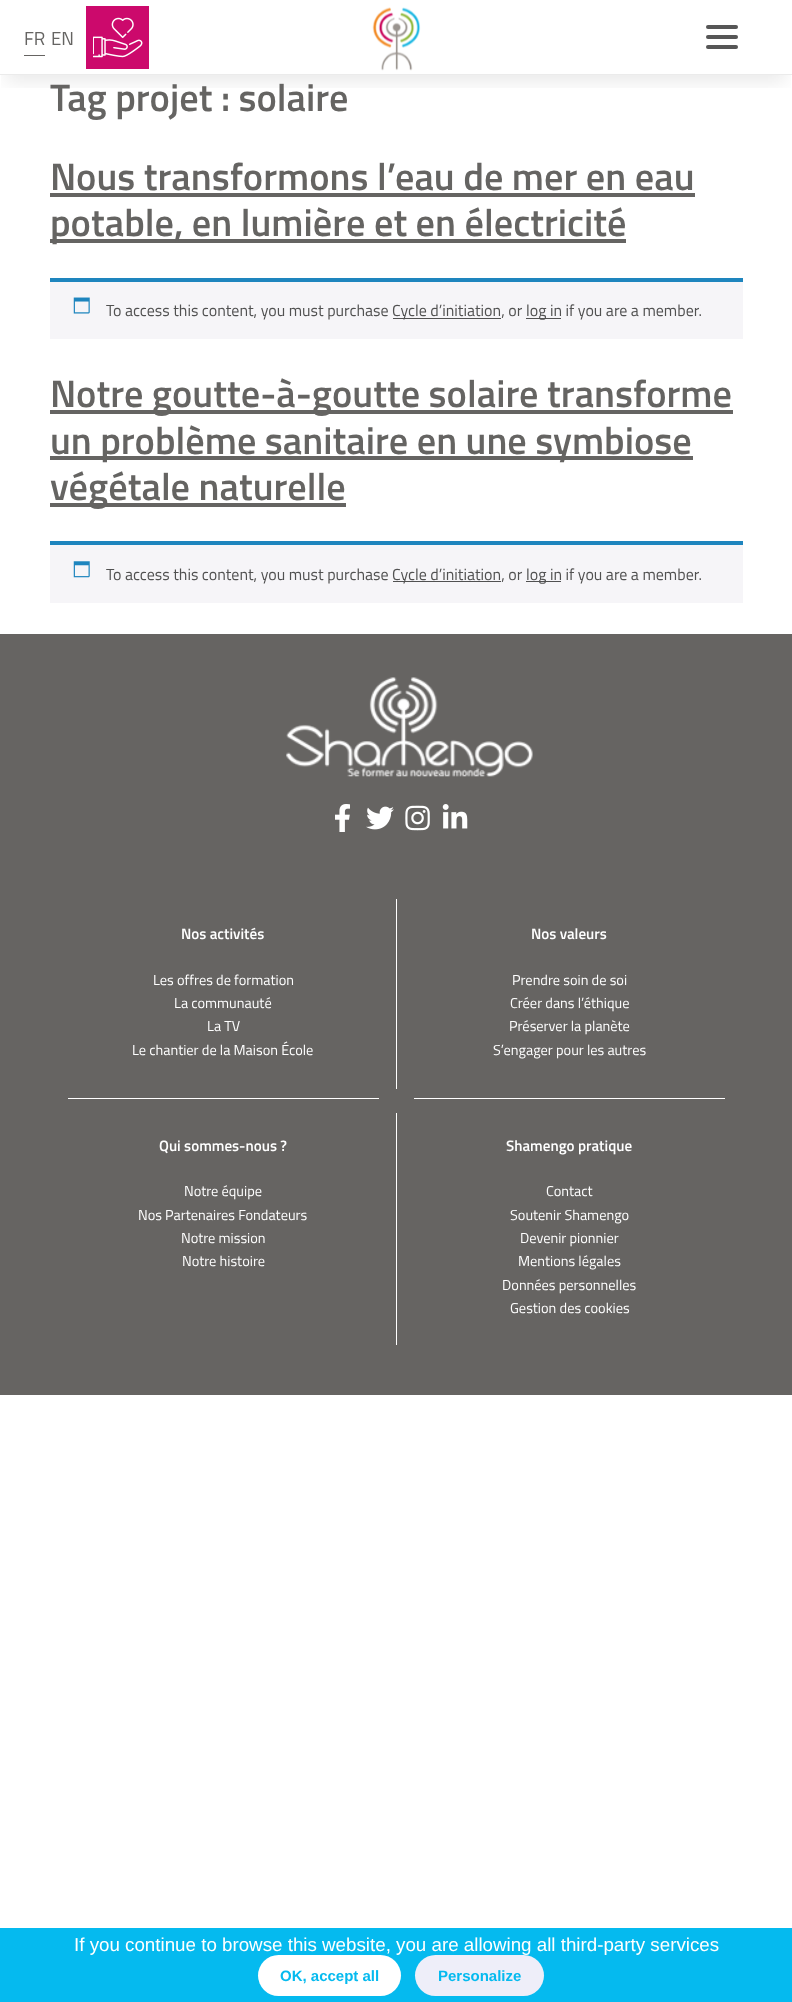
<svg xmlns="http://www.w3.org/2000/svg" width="792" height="2002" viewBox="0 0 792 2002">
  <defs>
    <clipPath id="clip1"><path d="M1 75h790v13H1z"/></clipPath>
  </defs>
  <rect width="100%" height="100%" fill="#fff"/>
  <g clip-path="url(#clip1)">
    <path d="M6 19h780v62H6z" fill="#00000017" filter="blur(9.5px)"/>
  </g>
  <path d="M24 55h21v1H24z" fill="#666462"/>
  <path d="M86 6h63v63H86z" fill="#cc096c"/>
  <image x="93" y="17" width="50" height="41" href="img/1.png"/>
  <image x="372" y="7" width="49" height="64" href="img/2.png"/>
  <path d="M0 74h792v1H0z" fill="#ebebeb"/>
  <rect x="706" y="35" width="32" height="4" rx="2" fill="#565656"/>
  <rect x="706" y="25" width="32" height="4" rx="2" fill="#565656"/>
  <rect x="706" y="45" width="32" height="4" rx="2" fill="#565656"/>
  <path d="M50 193h645v4H50z" fill="#656462"/>
  <path d="M50 239h576v4H50z" fill="#656462"/>
  <path d="M50 282h693v57H50z" fill="#f6f5f8"/>
  <path d="M50 278h693v4H50z" fill="#1e85be"/>
  <image x="73" y="297" width="17" height="17" href="img/3.png"/>
  <path d="M393 318h108v1H393z" fill="#515151"/>
  <path d="M526 318h35v1H526z" fill="#515151"/>
  <path d="M50 410h683v4H50z" fill="#656462"/>
  <path d="M50 456h643v4H50z" fill="#656462"/>
  <path d="M50 503h296v4H50z" fill="#656462"/>
  <path d="M50 545h693v58H50z" fill="#f6f5f8"/>
  <path d="M50 541h693v4H50z" fill="#1e85be"/>
  <image x="73" y="561" width="17" height="17" href="img/4.png"/>
  <path d="M393 581h108v1H393z" fill="#515151"/>
  <path d="M526 581h35v1H526z" fill="#515151"/>
  <path d="M0 634h792v761H0z" fill="#666462"/>
  <image x="286" y="677" width="247" height="100" href="img/5.png"/>
  <image x="335" y="804" width="15" height="28" href="img/6.png"/>
  <image x="366" y="806" width="28" height="24" href="img/7.png"/>
  <image x="405" y="805" width="25" height="26" href="img/8.png"/>
  <image x="442" y="804" width="26" height="25" href="img/9.png"/>
  <path d="M68 1098h311v1H68z" fill="#fff"/>
  <path d="M396 899h1v190H396z" fill="#fff"/>
  <path d="M414 1098h311v1H414z" fill="#fff"/>
  <path d="M396 1113h1v232H396z" fill="#fff"/>
  <path d="M0 1928h792v74H0z" fill="#05baef"/>
  <rect x="258" y="1955" width="143" height="41" rx="20.5" fill="#fff"/>
  <rect x="415" y="1955" width="129" height="41" rx="20.5" fill="#eeeef9"/>
  <g font-family="Titillium Web" font-size="18.75" fill="#656462">
    <text x="24" y="45">FR</text>
    <text x="51" y="45">EN</text>
  </g>
  <g font-family="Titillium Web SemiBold" font-size="38.4" font-weight="600" fill="#656462">
    <text x="50" y="111">Tag projet : solaire</text>
    <text x="50" y="190">Nous transformons l’eau de mer en eau</text>
    <text x="50" y="236">potable, en lumière et en électricité</text>
  </g>
  <g font-family="Titillium Web" font-size="16" fill="#515151">
    <text x="106" y="316">To access this content, you must purchase</text>
    <text x="392" y="316">Cycle d’initiation, or</text>
    <text x="526" y="316">log in if you are a member.</text>
  </g>
  <g font-family="Titillium Web SemiBold" font-size="38.4" font-weight="600" fill="#656462">
    <text x="50" y="407">Notre goutte-à-goutte solaire transforme</text>
    <text x="50" y="454">un problème sanitaire en une symbiose</text>
    <text x="50" y="500">végétale naturelle</text>
  </g>
  <g font-family="Titillium Web" font-size="16" fill="#515151">
    <text x="106" y="580">To access this content, you must purchase</text>
    <text x="392" y="580">Cycle d’initiation, or</text>
    <text x="526" y="580">log in if you are a member.</text>
  </g>
  <text x="181" y="939" font-family="Titillium Web SemiBold" font-size="15.1" font-weight="600" fill="#fff">Nos activités</text>
  <g font-family="Titillium Web" font-size="14.4" fill="#fff">
    <text x="153" y="985">Les offres de formation</text>
    <text x="174" y="1008">La communauté</text>
    <text x="207" y="1031">La TV</text>
    <text x="132" y="1055">Le chantier de la Maison École</text>
  </g>
  <text x="531" y="939" font-family="Titillium Web SemiBold" font-size="15.1" font-weight="600" fill="#fff">Nos valeurs</text>
  <g font-family="Titillium Web" font-size="14.4" fill="#fff">
    <text x="512" y="985">Prendre soin de soi</text>
    <text x="510" y="1008">Créer dans l’éthique</text>
    <text x="509" y="1031">Préserver la planète</text>
    <text x="493" y="1055">S’engager pour les autres</text>
  </g>
  <text x="159" y="1151" font-family="Titillium Web SemiBold" font-size="15.1" font-weight="600" fill="#fff">Qui sommes-nous ?</text>
  <g font-family="Titillium Web" font-size="14.4" fill="#fff">
    <text x="184" y="1196">Notre équipe</text>
    <text x="138" y="1220">Nos Partenaires Fondateurs</text>
    <text x="181" y="1243">Notre mission</text>
    <text x="182" y="1266">Notre histoire</text>
  </g>
  <text x="506" y="1151" font-family="Titillium Web SemiBold" font-size="15.1" font-weight="600" fill="#fff">Shamengo pratique</text>
  <g font-family="Titillium Web" font-size="14.4" fill="#fff">
    <text x="546" y="1196">Contact</text>
    <text x="510" y="1220">Soutenir Shamengo</text>
    <text x="520" y="1243">Devenir pionnier</text>
    <text x="518" y="1266">Mentions légales</text>
    <text x="502" y="1290">Données personnelles</text>
    <text x="510" y="1313">Gestion des cookies</text>
  </g>
  <text x="74" y="1951" font-family="Liberation Sans" font-size="18.75" fill="#fff">If you continue to browse this website, you are allowing all third-party services</text>
  <g font-family="Liberation Sans" font-size="15" font-weight="bold" fill="#05baef">
    <text x="280" y="1981">OK, accept all</text>
    <text x="438" y="1981">Personalize</text>
  </g>
</svg>
